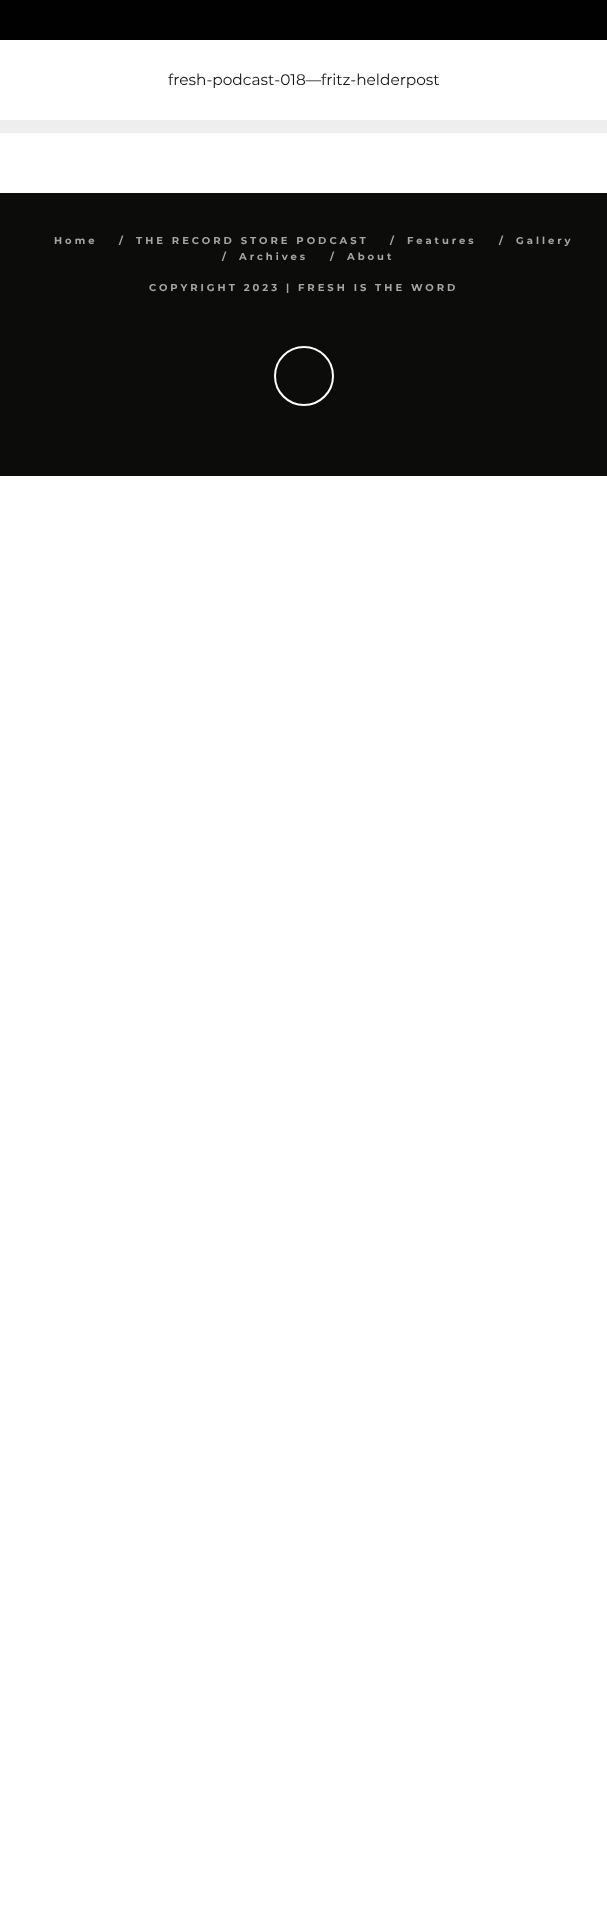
<svg xmlns="http://www.w3.org/2000/svg" width="607" height="1910" viewBox="0 0 607 1910">
  <rect width="100%" height="100%" fill="#fff"/>
  <path d="M0 0h607v40H0z" fill="#010101"/>
  <path d="M0 120h607v13H0z" fill="#eee"/>
  <path d="M0 193h607v283H0z" fill="#0c0c0b"/>
  <circle cx="304" cy="376" r="29" fill="none" stroke="#fff" stroke-width="2"/>
  <text x="168" y="85" font-family="Montserrat" font-size="15.4" fill="#161616">fresh-podcast-018—fritz-helderpost</text>
  <g font-family="Montserrat" font-size="10" font-weight="bold" letter-spacing="3" fill="#a6a6a6">
    <text x="54" y="244">Home</text>
    <text x="119" y="244">/</text>
    <text x="136" y="244">THE RECORD STORE PODCAST</text>
    <text x="390" y="244">/</text>
    <text x="407" y="244">Features</text>
    <text x="499" y="244">/</text>
    <text x="516" y="244">Gallery</text>
    <text x="222" y="260">/</text>
    <text x="239" y="260">Archives</text>
    <text x="330" y="260">/</text>
    <text x="347" y="260">About</text>
    <text x="149" y="291">COPYRIGHT 2023 | FRESH IS THE WORD</text>
  </g>
</svg>
